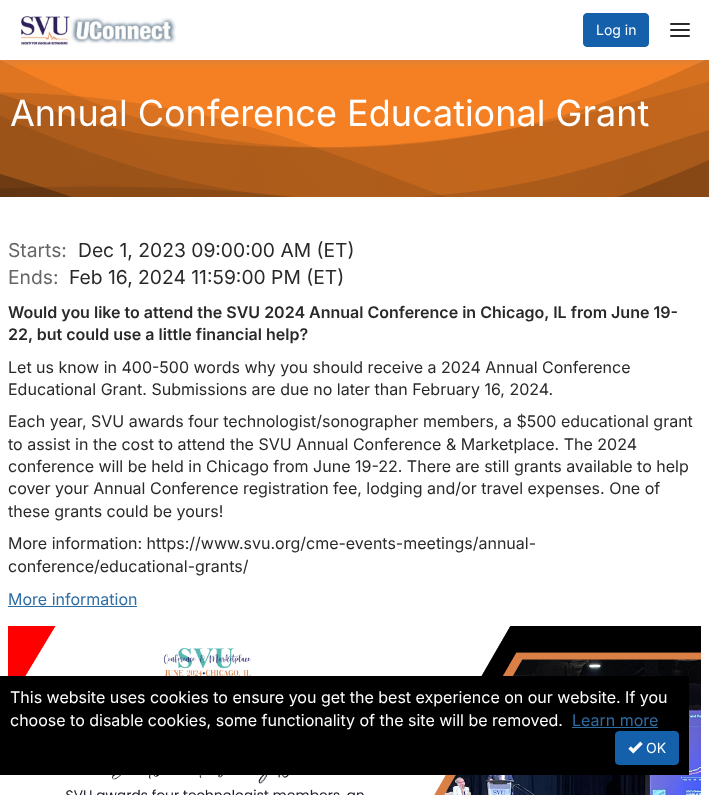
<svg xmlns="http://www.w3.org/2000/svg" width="709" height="795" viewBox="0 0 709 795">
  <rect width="100%" height="100%" fill="#fff"/>
  <image x="0" y="60" width="709" height="137" href="img/2.png"/>
  <path d="M0 2h709v60H0z" fill="#8387913d" filter="blur(4px)"/>
  <path d="M0 0h709v60H0z" fill="#fff"/>
  <image x="21" y="16" width="155" height="29" href="img/1.png"/>
  <rect x="583.5" y="13.5" width="65" height="33" rx="3.5" fill="#1460aa" stroke="#1460aa"/>
  <rect x="670" y="23" width="20" height="2" rx="1" fill="#292929"/>
  <rect x="670" y="29" width="20" height="2" rx="1" fill="#292929"/>
  <rect x="670" y="35" width="20" height="2" rx="1" fill="#292929"/>
  <path d="M8 606h129v1H8z" fill="#2e6da4"/>
  <image x="8" y="626" width="693" height="169" href="img/3.png"/>
  <path d="M0 676h689v99H0z" fill="#000"/>
  <path d="M572 727h86v1H572z" fill="#2e6da4"/>
  <rect x="615.5" y="731.5" width="63" height="33" rx="3.5" fill="#1460aa" stroke="#1460aa"/>
  <image x="628" y="741" width="15" height="13" href="img/4.png"/>
  <text x="596" y="35" font-family="Inter" font-size="14" fill="#fff">Log in</text>
  <text x="10" y="126" font-family="Inter" font-size="36" fill="#fff">Annual Conference Educational Grant</text>
  <text x="8" y="257" font-family="Inter" font-size="19.25" fill="#666">Starts:</text>
  <text x="78" y="257" font-family="Inter" font-size="19.25" fill="#292929">Dec 1, 2023 09:00:00 AM (ET)</text>
  <text x="8" y="284" font-family="Inter" font-size="19.25" fill="#666">Ends:</text>
  <text x="69" y="284" font-family="Inter" font-size="19.25" fill="#292929">Feb 16, 2024 11:59:00 PM (ET)</text>
  <g font-family="Inter" font-size="16" font-weight="600" fill="#292929">
    <text x="8" y="318">Would you like to attend the SVU 2024 Annual Conference in Chicago, IL from June 19-</text>
    <text x="8" y="340">22, but could use a little financial help?</text>
  </g>
  <g font-family="Inter" font-size="16" fill="#292929">
    <text x="8" y="373">Let us know in 400-500 words why you should receive a 2024 Annual Conference</text>
    <text x="8" y="395">Educational Grant. Submissions are due no later than February 16, 2024.</text>
    <text x="8" y="427">Each year, SVU awards four technologist/sonographer members, a $500 educational grant</text>
    <text x="8" y="450">to assist in the cost to attend the SVU Annual Conference &amp; Marketplace. The 2024</text>
    <text x="8" y="472">conference will be held in Chicago from June 19-22. There are still grants available to help</text>
    <text x="8" y="494">cover your Annual Conference registration fee, lodging and/or travel expenses. One of</text>
    <text x="8" y="517">these grants could be yours!</text>
    <text x="8" y="549">More information: https://www.svu.org/cme-events-meetings/annual-</text>
    <text x="8" y="572">conference/educational-grants/</text>
  </g>
  <text x="8" y="605" font-family="Inter" font-size="16" fill="#2e6da4">More information</text>
  <g font-family="Inter" font-size="16" fill="#fff">
    <text x="10" y="703">This website uses cookies to ensure you get the best experience on our website. If you</text>
    <text x="10" y="726">choose to disable cookies, some functionality of the site will be removed.</text>
  </g>
  <text x="572" y="726" font-family="Inter" font-size="16" fill="#2e6da4">Learn more</text>
  <text x="646" y="753" font-family="Inter" font-size="14" fill="#fff">OK</text>
</svg>
